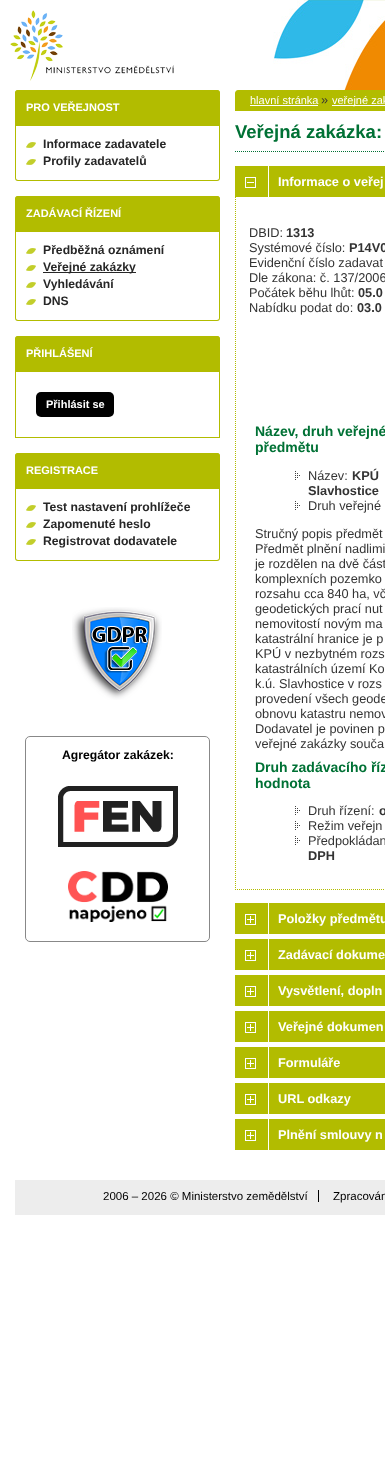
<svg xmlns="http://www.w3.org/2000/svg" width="385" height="1478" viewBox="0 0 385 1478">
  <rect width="100%" height="100%" fill="#fff"/>
  <image x="273" y="0" width="112" height="90" href="img/1.png"/>
  <image x="10" y="10" width="164" height="71" href="img/2.png"/>
  <path d="M18 90H217C218.5 90 220 91.5 220 93V126H15V93C15 91.5 16.5 90 18 90Z" fill="#b2bc00"/>
  <path d="M18 90H217C219 90 220 91 220 93V126H15V93C15 91 16 90 18 90ZM18 91H217C218 91 219 92 219 93V126H16V93C16 92 17 91 18 91Z" fill="#b2bc00" fill-rule="evenodd"/>
  <path d="M15 126H220V178C220 180 219 181 217 181H18C16 181 15 180 15 178ZM16 126H219V178C219 179 218 180 217 180H18C17 180 16 179 16 178Z" fill="#b2bc00" fill-rule="evenodd"/>
  <image x="26" y="142" width="10" height="6" href="img/3.png"/>
  <image x="26" y="159" width="10" height="6" href="img/3.png"/>
  <path d="M18 196H217C218.5 196 220 197.5 220 199V232H15V199C15 197.5 16.5 196 18 196Z" fill="#b2bc00"/>
  <path d="M18 196H217C219 196 220 197 220 199V232H15V199C15 197 16 196 18 196ZM18 197H217C218 197 219 198 219 199V232H16V199C16 198 17 197 18 197Z" fill="#b2bc00" fill-rule="evenodd"/>
  <path d="M15 232H220V318C220 320 219 321 217 321H18C16 321 15 320 15 318ZM16 232H219V318C219 319 218 320 217 320H18C17 320 16 319 16 318Z" fill="#b2bc00" fill-rule="evenodd"/>
  <image x="26" y="248" width="10" height="6" href="img/3.png"/>
  <image x="26" y="265" width="10" height="6" href="img/3.png"/>
  <path d="M43 272h93v1H43z" fill="#272727"/>
  <image x="26" y="282" width="10" height="6" href="img/3.png"/>
  <image x="26" y="299" width="10" height="6" href="img/3.png"/>
  <path d="M18 336H217C218.5 336 220 337.5 220 339V372H15V339C15 337.5 16.5 336 18 336Z" fill="#b2bc00"/>
  <path d="M18 336H217C219 336 220 337 220 339V372H15V339C15 337 16 336 18 336ZM18 337H217C218 337 219 338 219 339V372H16V339C16 338 17 337 18 337Z" fill="#b2bc00" fill-rule="evenodd"/>
  <path d="M219 372h1v66H219z" fill="#b2bc00"/>
  <path d="M15 437h205v1H15z" fill="#b2bc00"/>
  <path d="M15 372h1v66H15z" fill="#b2bc00"/>
  <rect x="36" y="392" width="78" height="25" rx="5" fill="#000"/>
  <path d="M18 453H217C218.5 453 220 454.5 220 456V489H15V456C15 454.5 16.5 453 18 453Z" fill="#b2bc00"/>
  <path d="M18 453H217C219 453 220 454 220 456V489H15V456C15 454 16 453 18 453ZM18 454H217C218 454 219 455 219 456V489H16V456C16 455 17 454 18 454Z" fill="#b2bc00" fill-rule="evenodd"/>
  <path d="M15 489H220V558C220 560 219 561 217 561H18C16 561 15 560 15 558ZM16 489H219V558C219 559 218 560 217 560H18C17 560 16 559 16 558Z" fill="#b2bc00" fill-rule="evenodd"/>
  <image x="26" y="505" width="10" height="6" href="img/3.png"/>
  <image x="26" y="522" width="10" height="6" href="img/3.png"/>
  <image x="26" y="539" width="10" height="6" href="img/3.png"/>
  <image x="72" y="607" width="90" height="93" href="img/4.png"/>
  <rect x="25.5" y="736.5" width="184" height="205" rx="4.5" fill="none" stroke="#888"/>
  <image x="58" y="786" width="120" height="61" href="img/5.png"/>
  <image x="68" y="871" width="100" height="51" href="img/6.png"/>
  <path d="M238 90H385C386.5 90 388 91.5 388 93V111H235V93C235 91.5 236.5 90 238 90Z" fill="#b2bc00"/>
  <path d="M250 105h68v1H250z" fill="#fff"/>
  <path d="M332 105h53v1H332z" fill="#fff"/>
  <path d="M235 151.5H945" fill="none" stroke="#007135" stroke-dasharray="1 1"/>
  <image x="235" y="166" width="150" height="31" href="img/7.png"/>
  <image x="245" y="177" width="11" height="11" href="img/8.png"/>
  <path d="M235 889.5H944" fill="none" stroke="#b2bc00" stroke-dasharray="1 1"/>
  <path d="M235.5 197V890" fill="none" stroke="#b2bc00" stroke-dasharray="1 1"/>
  <image x="295" y="471" width="5" height="9" href="img/9.png"/>
  <image x="295" y="501" width="5" height="9" href="img/9.png"/>
  <image x="295" y="806" width="5" height="9" href="img/9.png"/>
  <image x="295" y="821" width="5" height="9" href="img/9.png"/>
  <image x="295" y="836" width="5" height="9" href="img/9.png"/>
  <image x="235" y="903" width="150" height="31" href="img/7.png"/>
  <image x="245" y="914" width="11" height="11" href="img/10.png"/>
  <image x="235" y="939" width="150" height="31" href="img/7.png"/>
  <image x="245" y="950" width="11" height="11" href="img/10.png"/>
  <image x="235" y="975" width="150" height="31" href="img/7.png"/>
  <image x="245" y="986" width="11" height="11" href="img/10.png"/>
  <image x="235" y="1011" width="150" height="31" href="img/7.png"/>
  <image x="245" y="1022" width="11" height="11" href="img/10.png"/>
  <image x="235" y="1047" width="150" height="31" href="img/7.png"/>
  <image x="245" y="1058" width="11" height="11" href="img/10.png"/>
  <image x="235" y="1083" width="150" height="31" href="img/7.png"/>
  <image x="245" y="1094" width="11" height="11" href="img/10.png"/>
  <image x="235" y="1119" width="150" height="31" href="img/7.png"/>
  <image x="245" y="1130" width="11" height="11" href="img/10.png"/>
  <path d="M15 1180h370v35H15z" fill="#ededed"/>
  <path d="M318 1190h1v12H318z" fill="#000"/>
  <text x="26" y="111" font-family="Liberation Sans" font-size="11" font-weight="bold" fill="#fff">PRO VEŘEJNOST</text>
  <g font-family="Liberation Sans" font-size="12.2" font-weight="bold" fill="#272727">
    <text x="43" y="148">Informace zadavatele</text>
    <text x="43" y="165">Profily zadavatelů</text>
  </g>
  <text x="26" y="217" font-family="Liberation Sans" font-size="11" font-weight="bold" fill="#fff">ZADÁVACÍ ŘÍZENÍ</text>
  <g font-family="Liberation Sans" font-size="12.2" font-weight="bold" fill="#272727">
    <text x="43" y="254">Předběžná oznámení</text>
    <text x="43" y="271">Veřejné zakázky</text>
    <text x="43" y="288">Vyhledávání</text>
    <text x="43" y="305">DNS</text>
  </g>
  <g font-family="Liberation Sans" font-size="11" font-weight="bold" fill="#fff">
    <text x="26" y="357">PŘIHLÁŠENÍ</text>
    <text x="46" y="408">Přihlásit se</text>
    <text x="26" y="474">REGISTRACE</text>
  </g>
  <g font-family="Liberation Sans" font-size="12.2" font-weight="bold" fill="#272727">
    <text x="43" y="511">Test nastavení prohlížeče</text>
    <text x="43" y="528">Zapomenuté heslo</text>
    <text x="43" y="545">Registrovat dodavatele</text>
  </g>
  <text x="62" y="759" font-family="Liberation Sans" font-size="12.2" font-weight="bold" fill="#000">Agregátor zakázek:</text>
  <text x="250" y="104" font-family="Liberation Sans" font-size="11" fill="#fff">hlavní stránka</text>
  <text x="321" y="104" font-family="Liberation Sans" font-size="12.75" fill="#333">»</text>
  <text x="332" y="104" font-family="Liberation Sans" font-size="11" fill="#fff">veřejné zak</text>
  <text x="235" y="138" font-family="Liberation Sans" font-size="18.5" font-weight="bold" fill="#007135">Veřejná zakázka:</text>
  <text x="278" y="186" font-family="Liberation Sans" font-size="12.75" font-weight="bold" fill="#fff">Informace o veřej</text>
  <text x="249" y="237" font-family="Liberation Sans" font-size="12.75" fill="#333">DBID:</text>
  <text x="286" y="237" font-family="Liberation Sans" font-size="12.75" font-weight="bold" fill="#333">1313</text>
  <text x="249" y="252" font-family="Liberation Sans" font-size="12.75" fill="#333">Systémové číslo:</text>
  <text x="349" y="252" font-family="Liberation Sans" font-size="12.75" font-weight="bold" fill="#333">P14V0</text>
  <g font-family="Liberation Sans" font-size="12.75" fill="#333">
    <text x="249" y="267">Evidenční číslo zadavat</text>
    <text x="249" y="282">Dle zákona: č. 137/2006</text>
    <text x="249" y="297">Počátek běhu lhůt:</text>
  </g>
  <text x="358" y="297" font-family="Liberation Sans" font-size="12.75" font-weight="bold" fill="#333">05.0</text>
  <text x="249" y="312" font-family="Liberation Sans" font-size="12.75" fill="#333">Nabídku podat do:</text>
  <text x="357" y="312" font-family="Liberation Sans" font-size="12.75" font-weight="bold" fill="#333">03.0</text>
  <g font-family="Liberation Sans" font-size="14" font-weight="bold" fill="#007135">
    <text x="255" y="436">Název, druh veřejné</text>
    <text x="255" y="452">předmětu</text>
  </g>
  <text x="308" y="480" font-family="Liberation Sans" font-size="12.75" fill="#333">Název:</text>
  <g font-family="Liberation Sans" font-size="12.75" font-weight="bold" fill="#333">
    <text x="352" y="480">KPÚ</text>
    <text x="308" y="495">Slavhostice</text>
  </g>
  <g font-family="Liberation Sans" font-size="12.75" fill="#333">
    <text x="308" y="510">Druh veřejné</text>
    <text x="255" y="538">Stručný popis předmět</text>
    <text x="255" y="553">Předmět plnění nadlimi</text>
    <text x="255" y="568">je rozdělen na dvě část</text>
    <text x="255" y="583">komplexních pozemko</text>
    <text x="255" y="598">rozsahu cca 840 ha, vč</text>
    <text x="255" y="613">geodetických prací nut</text>
    <text x="255" y="628">nemovitostí novým ma</text>
    <text x="255" y="643">katastrální hranice je p</text>
    <text x="255" y="658">KPÚ v nezbytném rozs</text>
    <text x="255" y="673">katastrálních území Ko</text>
    <text x="255" y="688">k.ú. Slavhostice v rozs</text>
    <text x="255" y="703">provedení všech geode</text>
    <text x="255" y="718">obnovu katastru nemov</text>
    <text x="255" y="733">Dodavatel je povinen p</text>
    <text x="255" y="748">veřejné zakázky souča</text>
  </g>
  <g font-family="Liberation Sans" font-size="14" font-weight="bold" fill="#007135">
    <text x="255" y="772">Druh zadávacího říz</text>
    <text x="255" y="788">hodnota</text>
  </g>
  <text x="308" y="815" font-family="Liberation Sans" font-size="12.75" fill="#333">Druh řízení:</text>
  <text x="379" y="815" font-family="Liberation Sans" font-size="12.75" font-weight="bold" fill="#333">o</text>
  <g font-family="Liberation Sans" font-size="12.75" fill="#333">
    <text x="308" y="830">Režim veřejn</text>
    <text x="308" y="845">Předpokládan</text>
  </g>
  <text x="308" y="860" font-family="Liberation Sans" font-size="12.75" font-weight="bold" fill="#333">DPH</text>
  <g font-family="Liberation Sans" font-size="12.75" font-weight="bold" fill="#fff">
    <text x="278" y="923">Položky předmětu</text>
    <text x="278" y="959">Zadávací dokume</text>
    <text x="278" y="995">Vysvětlení, dopln</text>
    <text x="278" y="1031">Veřejné dokumen</text>
    <text x="278" y="1067">Formuláře</text>
    <text x="278" y="1103">URL odkazy</text>
    <text x="278" y="1139">Plnění smlouvy n</text>
  </g>
  <g font-family="Liberation Sans" font-size="11.5" fill="#000">
    <text x="103" y="1200">2006 – 2026 © Ministerstvo zemědělství</text>
    <text x="333" y="1200">Zpracován</text>
  </g>
</svg>
